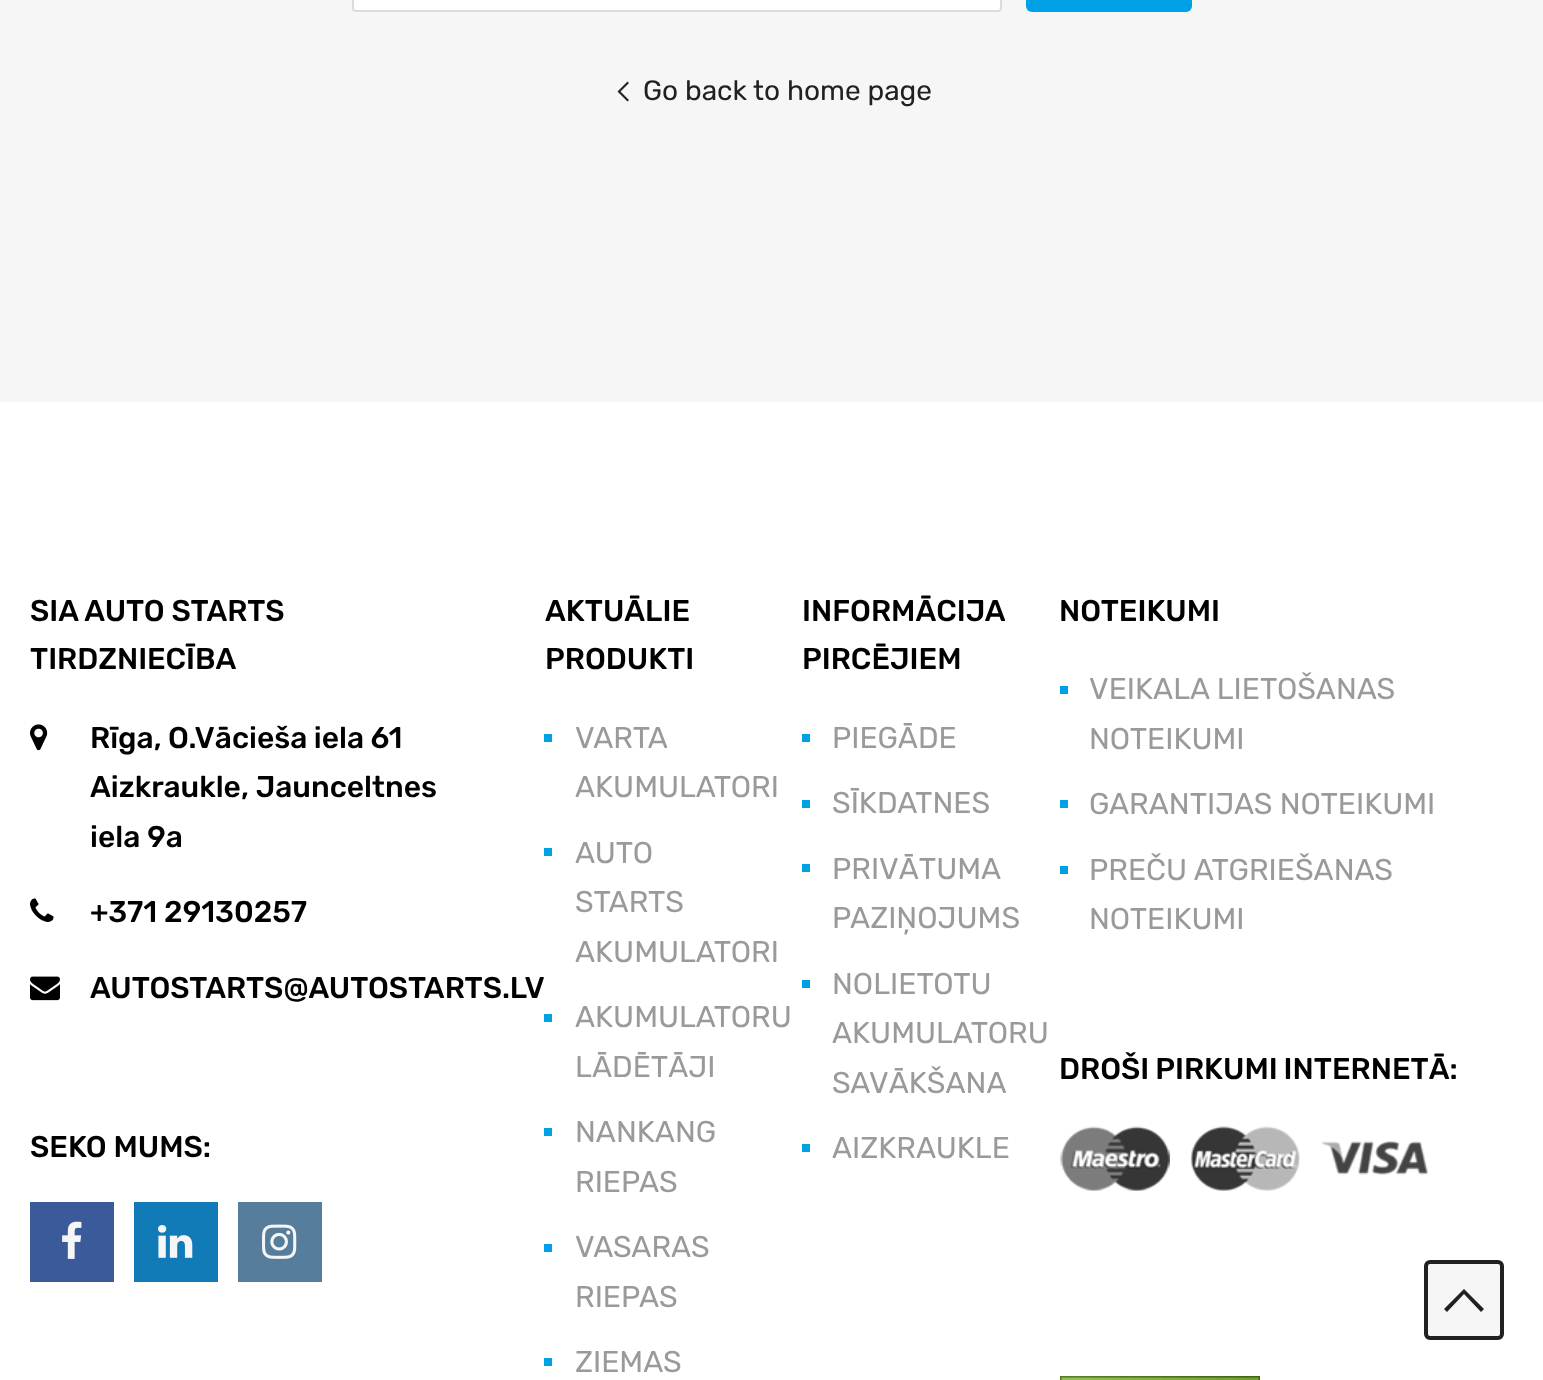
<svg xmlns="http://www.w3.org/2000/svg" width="1543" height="1380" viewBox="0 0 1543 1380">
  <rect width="100%" height="100%" fill="#f6f6f6"/>
  <rect x="353" y="-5" width="648" height="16" rx="3" fill="#fff" stroke="#dbdbdb" stroke-width="2"/>
  <rect x="1026" y="-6" width="166" height="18" rx="6" fill="#00a0e6"/>
  <path d="M627.5 81.5L617.5 91.5L627.5 101.5L629 100L620.5 91.5L629 83Z" fill="#212121"/>
  <path d="M0 402h1543v978H0z" fill="#fff"/>
  <image x="30" y="724" width="18" height="27" href="img/1.png"/>
  <image x="30" y="898" width="24" height="24" href="img/2.png"/>
  <image x="30" y="976" width="30" height="25" href="img/3.png"/>
  <path d="M30 1202h84v80H30z" fill="#3b5a9a"/>
  <image x="62" y="1221" width="20" height="38" href="img/4.png"/>
  <path d="M134 1202h84v80H134z" fill="#117bb7"/>
  <image x="158" y="1225" width="35" height="33" href="img/5.png"/>
  <path d="M238 1202h84v80H238z" fill="#567d9c"/>
  <image x="262" y="1224" width="35" height="35" href="img/6.png"/>
  <path d="M544 734h8v8H544z" fill="#00a0e6"/>
  <path d="M544 848h8v8H544z" fill="#00a0e6"/>
  <path d="M544 1014h8v8H544z" fill="#00a0e6"/>
  <path d="M544 1128h8v8H544z" fill="#00a0e6"/>
  <path d="M544 1244h8v8H544z" fill="#00a0e6"/>
  <path d="M544 1358h8v8H544z" fill="#00a0e6"/>
  <path d="M802 734h8v8H802z" fill="#00a0e6"/>
  <path d="M802 800h8v8H802z" fill="#00a0e6"/>
  <path d="M802 864h8v8H802z" fill="#00a0e6"/>
  <path d="M802 980h8v8H802z" fill="#00a0e6"/>
  <path d="M802 1144h8v8H802z" fill="#00a0e6"/>
  <path d="M1060 686h8v8H1060z" fill="#00a0e6"/>
  <path d="M1060 800h8v8H1060z" fill="#00a0e6"/>
  <path d="M1060 866h8v8H1060z" fill="#00a0e6"/>
  <image x="1060" y="1126" width="110" height="65" href="img/7.png"/>
  <image x="1190" y="1126" width="110" height="65" href="img/8.png"/>
  <image x="1321" y="1141" width="108" height="34" href="img/9.png"/>
  <image x="1060" y="1376" width="200" height="4" href="img/10.png"/>
  <rect x="1426" y="1262" width="76" height="76" rx="4" fill="#f6f6f6" stroke="#212121" stroke-width="4"/>
  <path d="M1484 1309L1464 1289L1444 1309L1447 1312L1464 1294L1481 1312Z" fill="#212121"/>
  <text x="643" y="100" font-family="Rubik" font-size="28" fill="#212121">Go back to home page</text>
  <g font-family="Rubik" font-size="30" font-weight="500" fill="#000">
    <text x="30" y="621">SIA AUTO STARTS</text>
    <text x="30" y="669">TIRDZNIECĪBA</text>
    <text x="90" y="748" word-spacing="-0.5">Rīga, O.Vācieša iela 61</text>
    <text x="90" y="797">Aizkraukle, Jaunceltnes</text>
    <text x="90" y="847">iela 9a</text>
    <text x="90" y="922">+371 29130257</text>
    <text x="90" y="998">AUTOSTARTS@AUTOSTARTS.LV</text>
    <text x="30" y="1157">SEKO MUMS:</text>
    <text x="545" y="621">AKTUĀLIE</text>
    <text x="545" y="669">PRODUKTI</text>
  </g>
  <g font-family="Rubik" font-size="30" fill="#9a9a9a">
    <text x="575" y="748">VARTA</text>
    <text x="575" y="797">AKUMULATORI</text>
    <text x="575" y="863">AUTO</text>
    <text x="575" y="912">STARTS</text>
    <text x="575" y="962">AKUMULATORI</text>
    <text x="575" y="1027">AKUMULATORU</text>
    <text x="575" y="1077">LĀDĒTĀJI</text>
    <text x="575" y="1142">NANKANG</text>
    <text x="575" y="1192">RIEPAS</text>
    <text x="575" y="1257">VASARAS</text>
    <text x="575" y="1307">RIEPAS</text>
    <text x="575" y="1372">ZIEMAS</text>
  </g>
  <g font-family="Rubik" font-size="30" font-weight="500" fill="#000">
    <text x="802" y="621">INFORMĀCIJA</text>
    <text x="802" y="669">PIRCĒJIEM</text>
  </g>
  <g font-family="Rubik" font-size="30" fill="#9a9a9a">
    <text x="832" y="748">PIEGĀDE</text>
    <text x="832" y="813">SĪKDATNES</text>
    <text x="832" y="879">PRIVĀTUMA</text>
    <text x="832" y="928">PAZIŅOJUMS</text>
    <text x="832" y="994">NOLIETOTU</text>
    <text x="832" y="1043">AKUMULATORU</text>
    <text x="832" y="1093">SAVĀKŠANA</text>
    <text x="832" y="1158">AIZKRAUKLE</text>
  </g>
  <text x="1059" y="621" font-family="Rubik" font-size="30" font-weight="500" fill="#000">NOTEIKUMI</text>
  <g font-family="Rubik" font-size="30" fill="#9a9a9a">
    <text x="1089" y="699">VEIKALA LIETOŠANAS</text>
    <text x="1089" y="749">NOTEIKUMI</text>
    <text x="1089" y="814">GARANTIJAS NOTEIKUMI</text>
    <text x="1089" y="880">PREČU ATGRIEŠANAS</text>
    <text x="1089" y="929">NOTEIKUMI</text>
  </g>
  <text x="1059" y="1079" word-spacing="-1" font-family="Rubik" font-size="30" font-weight="500" fill="#000">DROŠI PIRKUMI INTERNETĀ:</text>
</svg>
